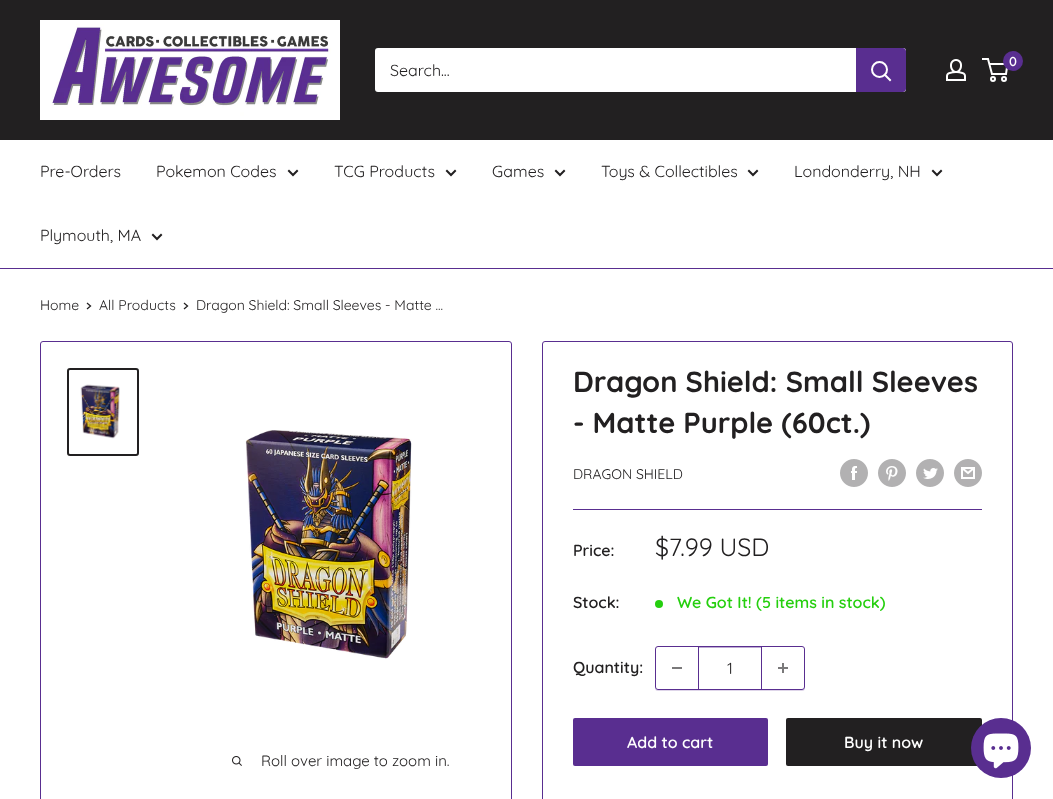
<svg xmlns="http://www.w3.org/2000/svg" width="1053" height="799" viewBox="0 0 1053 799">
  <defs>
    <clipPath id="clip1"><path d="M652 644H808V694H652ZM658 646H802C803.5 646 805 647.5 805 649V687C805 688.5 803.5 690 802 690H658C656.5 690 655 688.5 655 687V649C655 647.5 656.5 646 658 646Z" clip-rule="evenodd"/></clipPath>
  </defs>
  <rect width="100%" height="100%" fill="#fff"/>
  <path d="M0 0h1053v140H0z" fill="#222021"/>
  <image x="40" y="20" width="300" height="100" href="img/1.png"/>
  <image x="946" y="59" width="20" height="22" href="img/2.png"/>
  <circle cx="993" cy="79" r="2" fill="none" stroke="#fff" stroke-width="2"/>
  <circle cx="1004" cy="79" r="2" fill="none" stroke="#fff" stroke-width="2"/>
  <path d="M989.5 64H1007.5L1006 74H992L988 59H982" fill="none" stroke="#fff" stroke-width="2"/>
  <circle cx="1013" cy="61" r="10" fill="#592e90"/>
  <rect x="375" y="48" width="531" height="44" rx="3" fill="#fff"/>
  <path d="M856 48H903C904.5 48 906 49.5 906 51V89C906 90.5 904.5 92 903 92H856Z" fill="#592e90"/>
  <path d="M890 80L885 75" fill="none" stroke="#fff" stroke-width="2" stroke-linecap="square"/>
  <circle cx="879.5" cy="69.5" r="7.5" fill="none" stroke="#fff" stroke-width="2"/>
  <path d="M0 268h1053v1H0z" fill="#592e90"/>
  <path d="M297 171L293 175L289 171" fill="none" stroke="#222021" stroke-width="2" stroke-linecap="square"/>
  <path d="M455 171L451 175L447 171" fill="none" stroke="#222021" stroke-width="2" stroke-linecap="square"/>
  <path d="M564 171L560 175L556 171" fill="none" stroke="#222021" stroke-width="2" stroke-linecap="square"/>
  <path d="M757 171L753 175L749 171" fill="none" stroke="#222021" stroke-width="2" stroke-linecap="square"/>
  <path d="M941 171L937 175L933 171" fill="none" stroke="#222021" stroke-width="2" stroke-linecap="square"/>
  <path d="M161 235L157 239L153 235" fill="none" stroke="#222021" stroke-width="2" stroke-linecap="square"/>
  <path d="M87.5 303.5L90.5 306L87.5 308.5" fill="none" stroke="#222021" stroke-width="1.3" stroke-linecap="square"/>
  <path d="M184.5 303.5L187.5 306L184.5 308.5" fill="none" stroke="#222021" stroke-width="1.3" stroke-linecap="square"/>
  <rect x="542.5" y="341.5" width="470" height="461" rx="2.5" fill="none" stroke="#592e90"/>
  <image x="840" y="459" width="28" height="28" href="img/3.png"/>
  <image x="878" y="459" width="28" height="28" href="img/4.png"/>
  <image x="916" y="459" width="28" height="28" href="img/5.png"/>
  <image x="954" y="459" width="28" height="28" href="img/6.png"/>
  <path d="M573 509h409v1H573z" fill="#592e90"/>
  <circle cx="659" cy="604" r="4" fill="#25cf0e"/>
  <g clip-path="url(#clip1)">
    <rect x="655" y="647" width="150" height="44" rx="3" fill="#592e9033" filter="blur(0.5px)"/>
  </g>
  <rect x="655.5" y="646.5" width="149" height="43" rx="2.5" fill="none" stroke="#592e90"/>
  <path d="M672 667h10v2H672z" fill="#7a797a"/>
  <path d="M699 647h62v1H699z" fill="#bdabd3"/>
  <path d="M761 647h1v42H761z" fill="#592e90"/>
  <path d="M698 647h1v42H698z" fill="#592e90"/>
  <image x="778" y="663" width="10" height="10" href="img/7.png"/>
  <rect x="573" y="718" width="195" height="48" rx="2" fill="#592e90"/>
  <rect x="786" y="718" width="196" height="48" rx="2" fill="#222021"/>
  <rect x="40.5" y="341.5" width="471" height="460" rx="2.5" fill="none" stroke="#592e90"/>
  <rect x="68" y="369" width="70" height="86" rx="2" fill="none" stroke="#222021" stroke-width="2"/>
  <image x="80" y="384" width="40" height="55" href="img/8.png"/>
  <image x="245" y="430" width="167" height="229" href="img/9.png"/>
  <image x="232" y="756" width="10" height="10" href="img/10.png"/>
  <circle cx="1001" cy="748" r="30" fill="#592e90"/>
  <image x="983" y="733" width="36" height="36" href="img/11.png"/>
  <text x="1009" y="66" font-family="Quicksand" font-size="13" font-weight="600" fill="#fff">0</text>
  <g font-family="Quicksand" font-size="16" fill="#222021">
    <text x="390" y="76">Search...</text>
    <text x="40" y="177">Pre-Orders</text>
    <text x="156" y="177">Pokemon Codes</text>
    <text x="334" y="177">TCG Products</text>
    <text x="492" y="177">Games</text>
    <text x="601" y="177">Toys &amp; Collectibles</text>
    <text x="794" y="177">Londonderry, NH</text>
    <text x="40" y="241">Plymouth, MA</text>
  </g>
  <g font-family="Quicksand" font-size="14" fill="#222021">
    <text x="40" y="310">Home</text>
    <text x="99" y="310">All Products</text>
    <text x="196" y="310">Dragon Shield: Small Sleeves - Matte ...</text>
  </g>
  <g font-family="Quicksand" font-size="29" font-weight="bold" fill="#222021">
    <text x="573" y="392">Dragon Shield: Small Sleeves</text>
    <text x="573" y="433">- Matte Purple (60ct.)</text>
  </g>
  <text x="573" y="479" font-family="Quicksand" font-size="14" fill="#222021">DRAGON SHIELD</text>
  <text x="573" y="556" font-family="Quicksand" font-size="16" font-weight="600" fill="#222021">Price:</text>
  <text x="655" y="556" font-family="Quicksand" font-size="25" fill="#222021">$7.99 USD</text>
  <text x="573" y="608" font-family="Quicksand" font-size="16" font-weight="600" fill="#222021">Stock:</text>
  <text x="677" y="608" font-family="Quicksand" font-size="16" font-weight="600" fill="#25cf0e">We Got It! (5 items in stock)</text>
  <text x="573" y="673" font-family="Quicksand" font-size="16" font-weight="600" fill="#222021">Quantity:</text>
  <text x="727" y="674" font-family="Quicksand" font-size="16" fill="#222021">1</text>
  <g font-family="Quicksand" font-size="16" font-weight="600" fill="#fff">
    <text x="627" y="748">Add to cart</text>
    <text x="844" y="748">Buy it now</text>
  </g>
  <text x="261" y="766" font-family="Quicksand" font-size="15" fill="#222021">Roll over image to zoom in.</text>
</svg>
